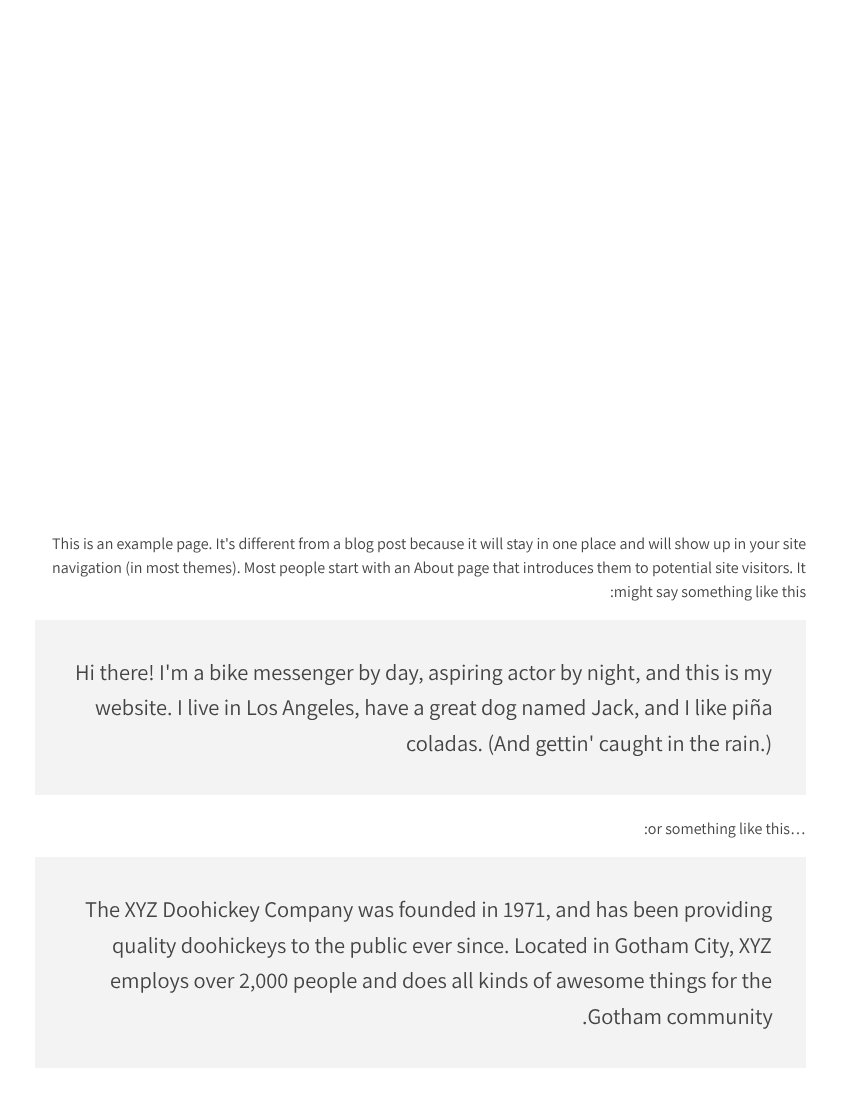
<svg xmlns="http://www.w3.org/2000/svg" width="841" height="1103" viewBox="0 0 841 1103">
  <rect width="100%" height="100%" fill="#fff"/>
  <path d="M35 620h771v175H35z" fill="#f3f3f3"/>
  <path d="M35 857h771v211H35z" fill="#f3f3f3"/>
  <g font-family="Assistant" font-size="16" fill="#444">
    <text x="52" y="549">This is an example page. It's different from a blog post because it will stay in one place and will show up in your site</text>
    <text x="52" y="573">navigation (in most themes). Most people start with an About page that introduces them to potential site visitors. It</text>
    <text x="610" y="597">:might say something like this</text>
  </g>
  <g font-family="Assistant" font-size="22.4" fill="#444">
    <text x="75" y="680">Hi there! I'm a bike messenger by day, aspiring actor by night, and this is my</text>
    <text x="95" y="715">website. I live in Los Angeles, have a great dog named Jack, and I like piña</text>
    <text x="406" y="751">coladas. (And gettin' caught in the rain.)</text>
  </g>
  <text x="644" y="834" font-family="Assistant" font-size="16" fill="#444">:or something like this…</text>
  <g font-family="Assistant" font-size="22.4" fill="#444">
    <text x="85" y="917">The XYZ Doohickey Company was founded in 1971, and has been providing</text>
    <text x="112" y="953">quality doohickeys to the public ever since. Located in Gotham City, XYZ</text>
    <text x="110" y="988">employs over 2,000 people and does all kinds of awesome things for the</text>
    <text x="582" y="1024">.Gotham community</text>
  </g>
</svg>
